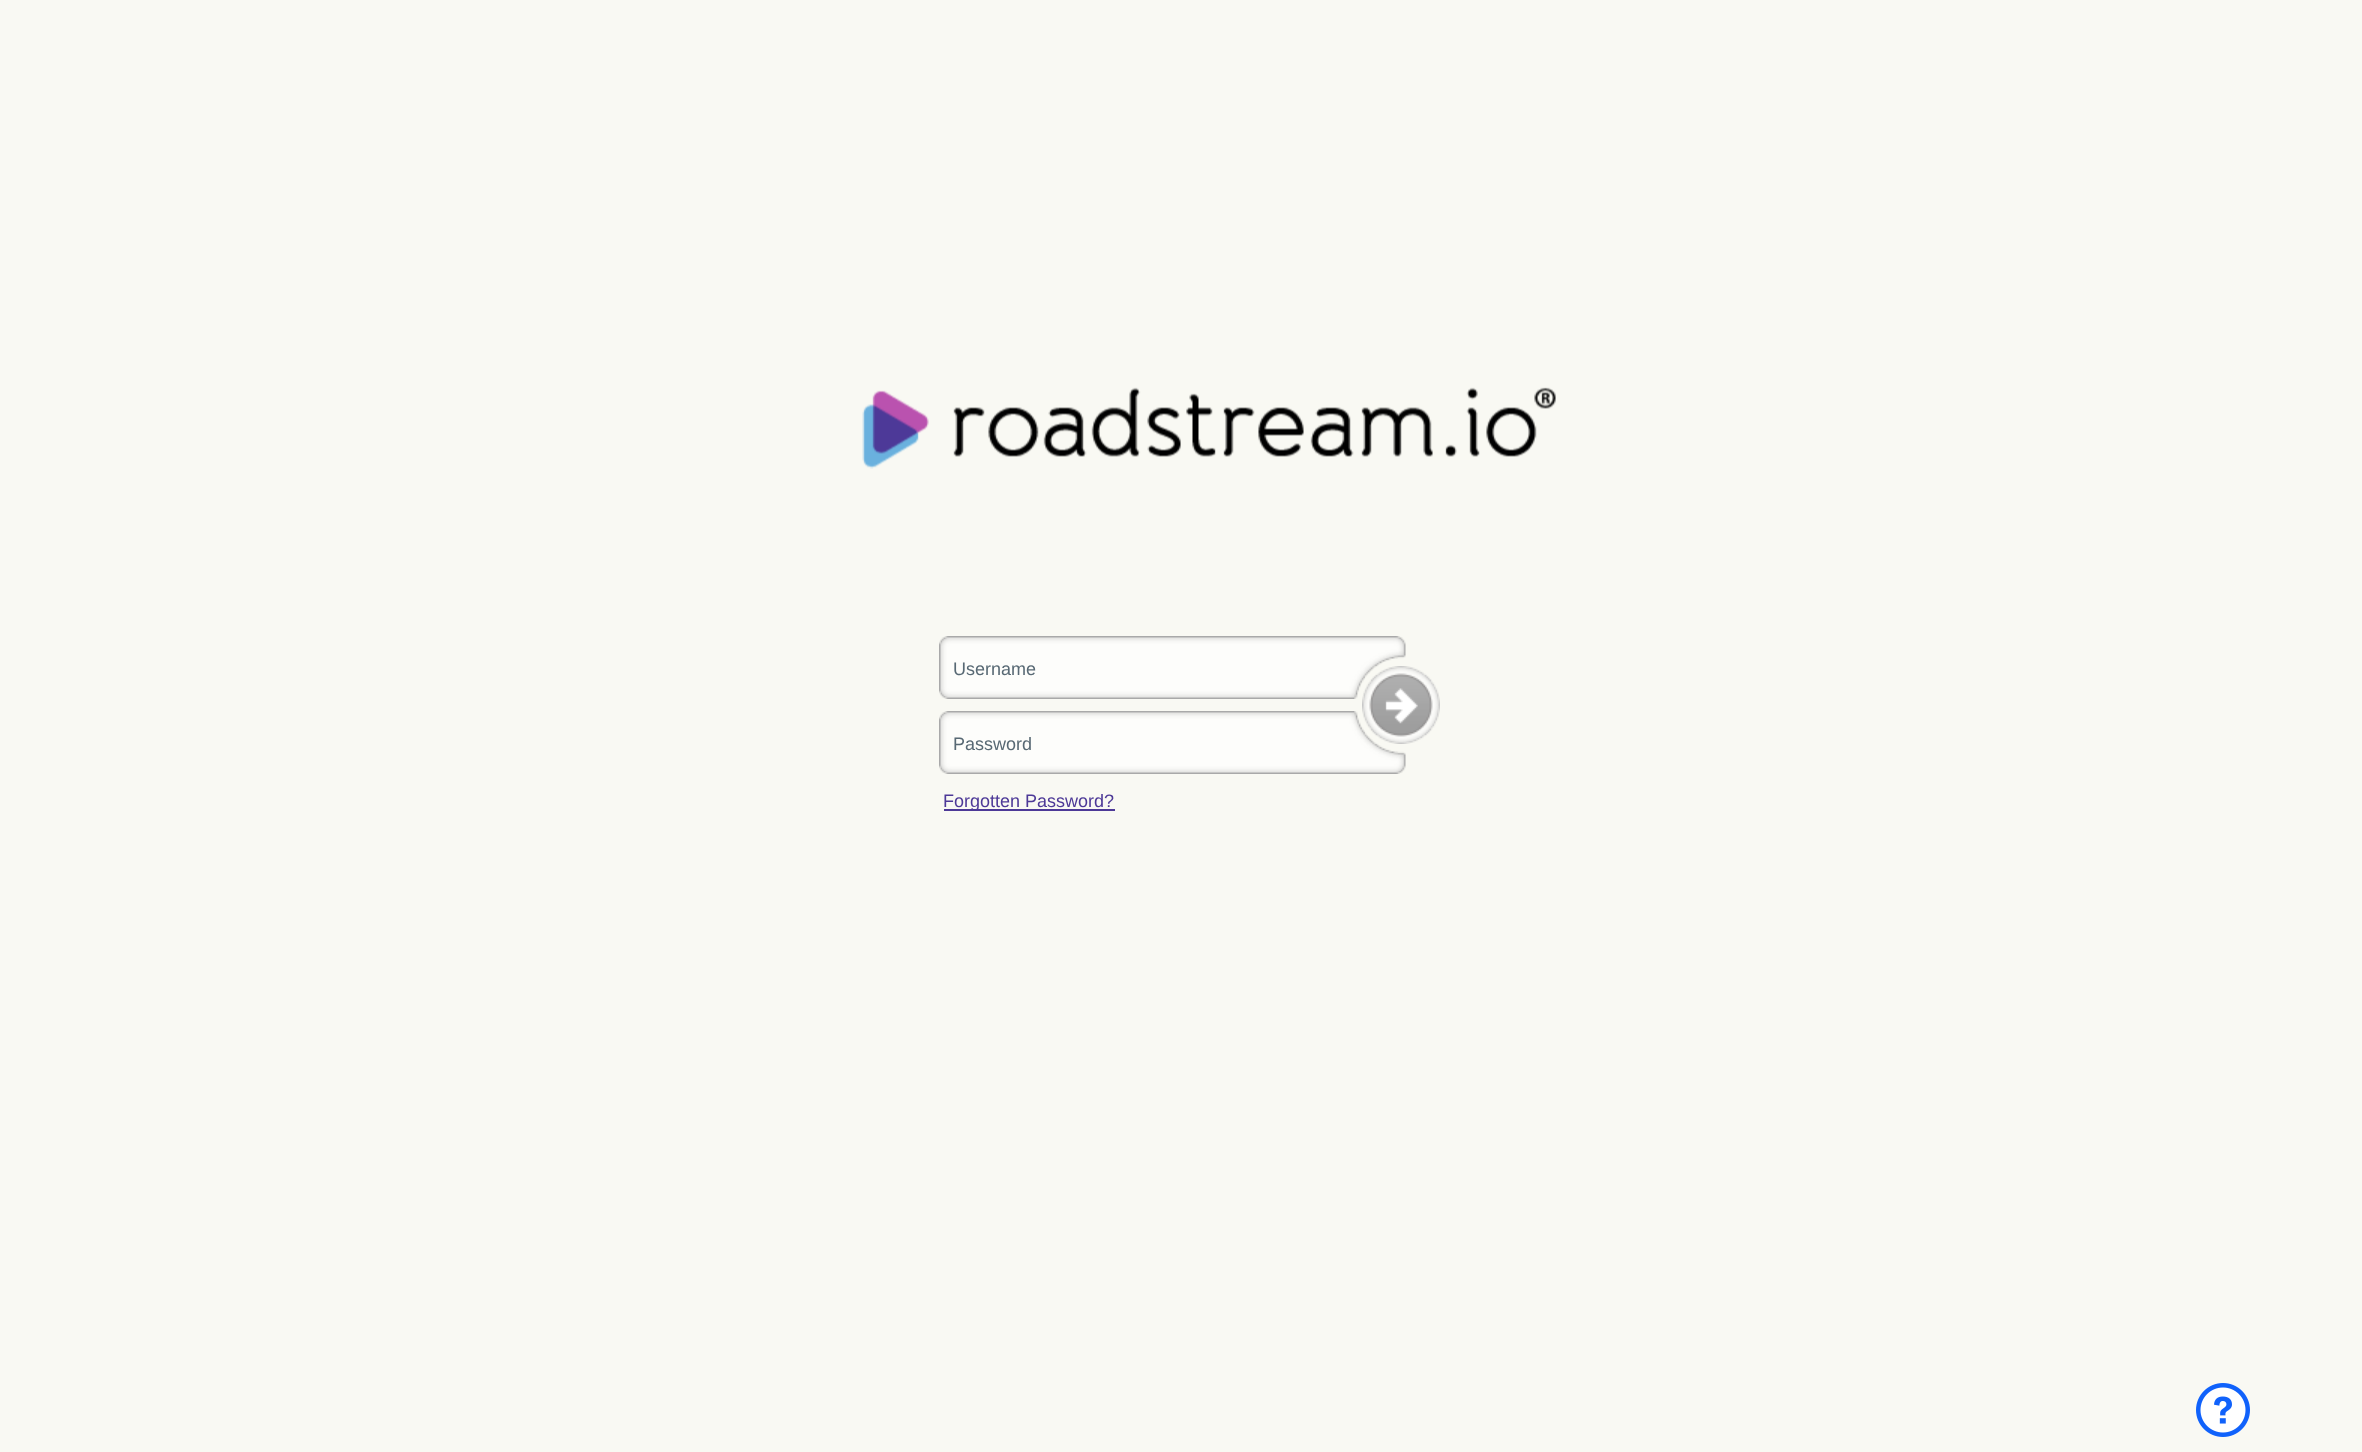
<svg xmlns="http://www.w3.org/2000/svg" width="2362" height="1452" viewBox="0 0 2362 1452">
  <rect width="100%" height="100%" fill="#f9f9f3"/>
  <image x="862" y="387" width="694" height="82" href="img/1.png"/>
  <image x="939" y="636" width="467" height="63" href="img/2.png"/>
  <image x="939" y="711" width="467" height="63" href="img/5.png"/>
  <image x="1362" y="666" width="78" height="78" href="img/3.png"/>
  <image x="1369" y="673" width="64" height="64" href="img/4.png"/>
  <path d="M944 809h171v2H944z" fill="#4d3997"/>
  <image x="2196" y="1383" width="54" height="54" href="img/6.png"/>
  <g font-family="Liberation Sans" font-size="18" fill="#586974">
    <text x="953" y="675">Username</text>
    <text x="953" y="750">Password</text>
  </g>
  <text x="943" y="807" font-family="Liberation Sans" font-size="18" fill="#4d3997">Forgotten Password?</text>
</svg>
